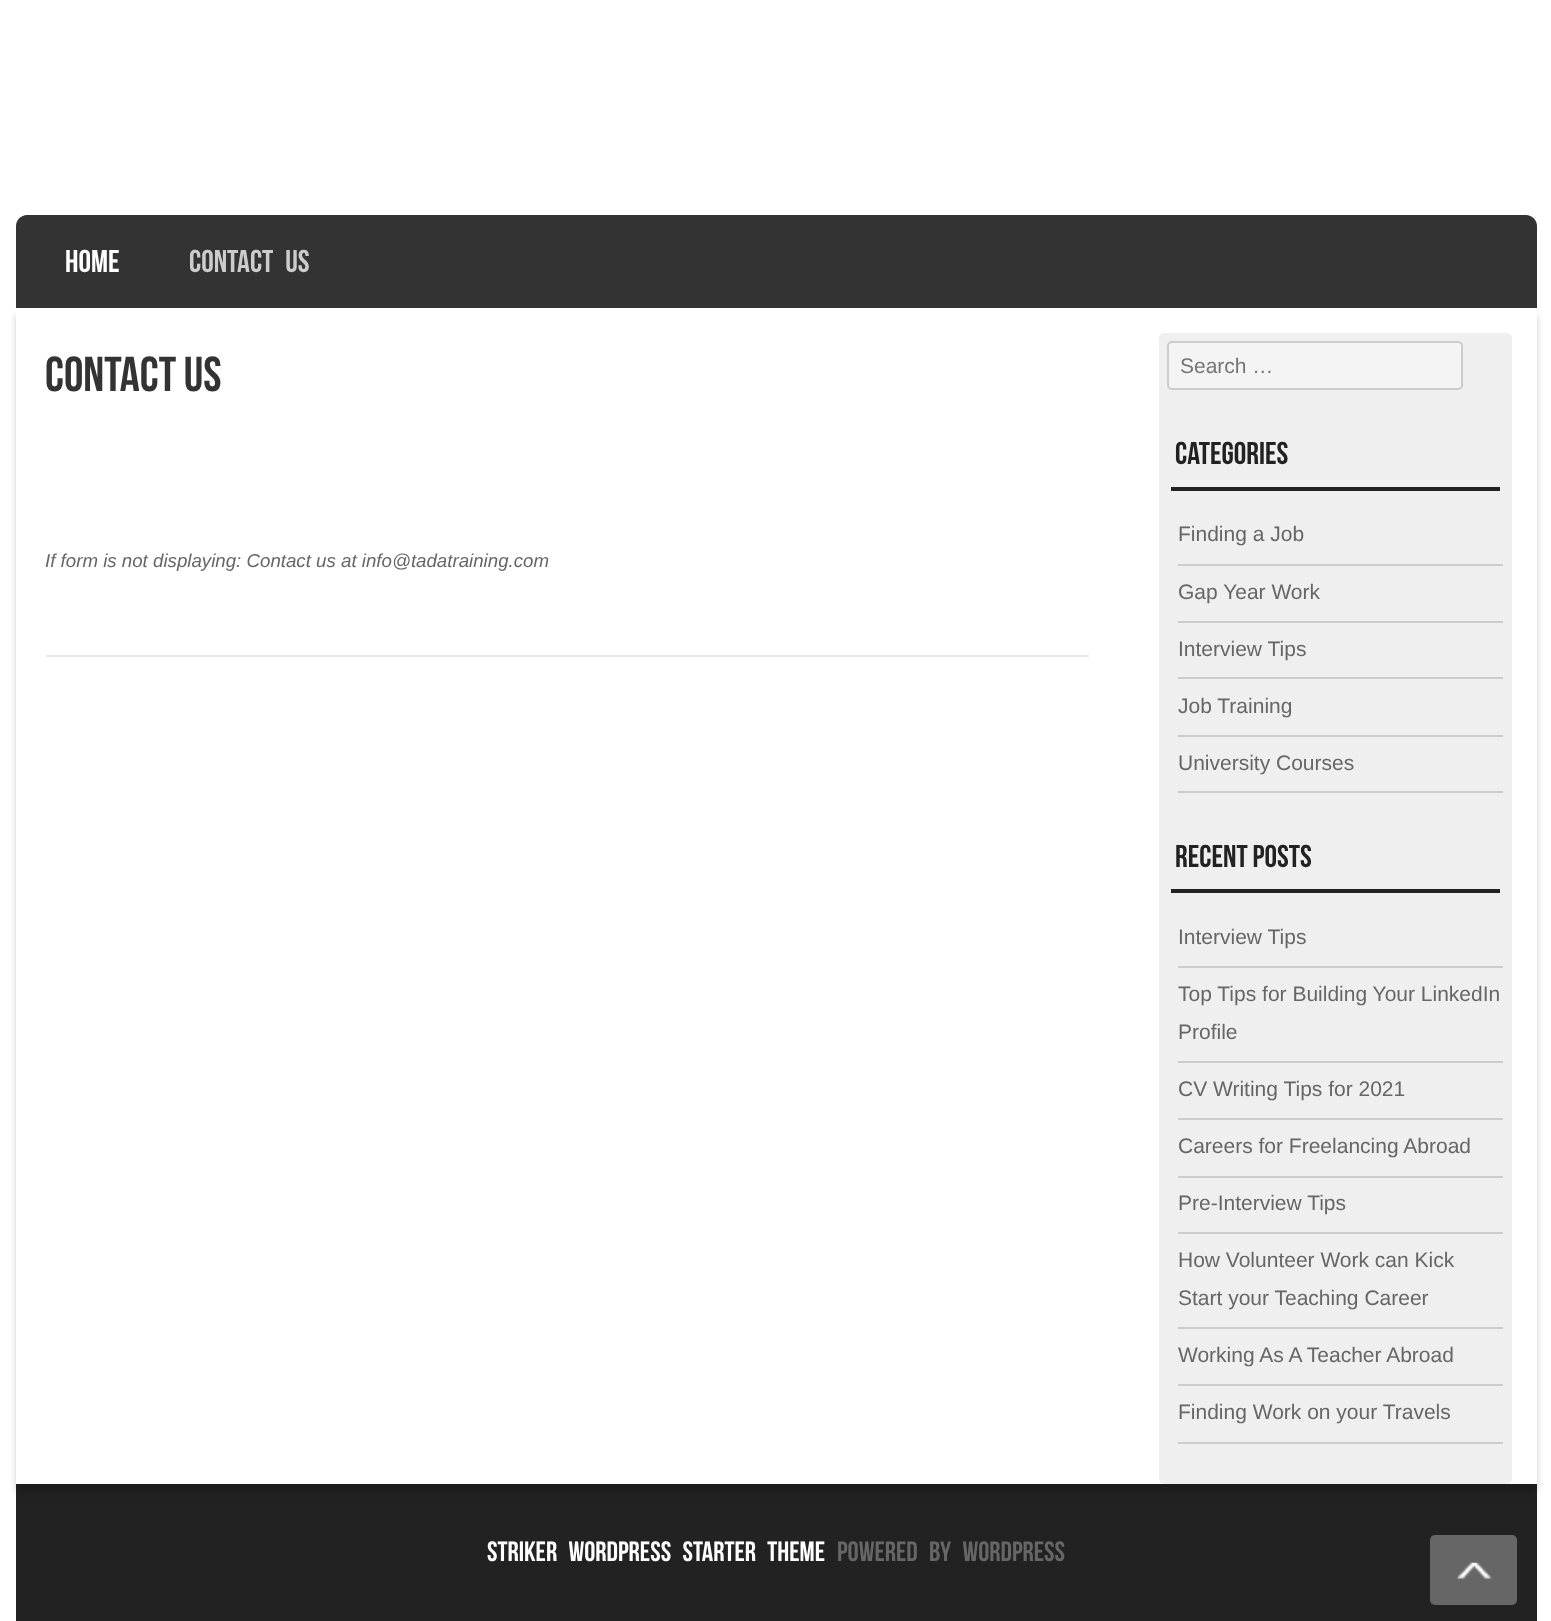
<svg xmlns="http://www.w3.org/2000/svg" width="1551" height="1621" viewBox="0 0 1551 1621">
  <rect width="100%" height="100%" fill="#fff"/>
  <path d="M27 215H1526C1532 215 1537 220 1537 226V308H16V226C16 220 21 215 27 215Z" fill="#333"/>
  <path d="M16 1484h1521v137H16z" fill="#222"/>
  <path d="M16 315h1521v1176H16z" fill="#00000033" filter="blur(3.5px)"/>
  <path d="M16 309h1521v1175H16z" fill="#fff"/>
  <path d="M46 655h1043v2H46z" fill="#e6e6e6"/>
  <rect x="1159" y="333" width="353" height="1151" rx="5" fill="#efefef"/>
  <rect x="1168" y="342" width="294" height="47" rx="4" fill="#f4f4f4" stroke="#ccc" stroke-width="2"/>
  <path d="M1171 487h329v4H1171z" fill="#222"/>
  <path d="M1178 564h325v2H1178z" fill="#ccc"/>
  <path d="M1178 621h325v2H1178z" fill="#ccc"/>
  <path d="M1178 677h325v2H1178z" fill="#ccc"/>
  <path d="M1178 735h325v2H1178z" fill="#ccc"/>
  <path d="M1178 791h325v2H1178z" fill="#ccc"/>
  <path d="M1171 889h329v4H1171z" fill="#222"/>
  <path d="M1178 966h325v2H1178z" fill="#ccc"/>
  <path d="M1178 1061h325v2H1178z" fill="#ccc"/>
  <path d="M1178 1118h325v2H1178z" fill="#ccc"/>
  <path d="M1178 1176h325v2H1178z" fill="#ccc"/>
  <path d="M1178 1232h325v2H1178z" fill="#ccc"/>
  <path d="M1178 1327h325v2H1178z" fill="#ccc"/>
  <path d="M1178 1384h325v2H1178z" fill="#ccc"/>
  <path d="M1178 1442h325v2H1178z" fill="#ccc"/>
  <rect x="1430" y="1535" width="87" height="70" rx="5" fill="#666"/>
  <image x="1457" y="1562" width="35" height="17" href="img/1.png"/>
  <text x="65" y="272" font-family="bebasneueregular" font-size="31.5" fill="#fff">HOME</text>
  <text x="189" y="272" word-spacing="7" font-family="bebasneueregular" font-size="31.5" fill="#ccc">CONTACT US</text>
  <text x="45" y="391" font-family="bebasneueregular" font-size="49" fill="#333">Contact us</text>
  <text x="45" y="567" font-family="Liberation Sans" font-size="18.7" font-style="italic" fill="#666">If form is not displaying: Contact us at info@tadatraining.com</text>
  <text x="1180" y="373" font-family="Liberation Sans" font-size="21" fill="#757575">Search …</text>
  <text x="1175" y="464" font-family="bebasneueregular" font-size="31.5" fill="#222">Categories</text>
  <g font-family="Liberation Sans" font-size="21" fill="#666">
    <text x="1178" y="541">Finding a Job</text>
    <text x="1178" y="599">Gap Year Work</text>
    <text x="1178" y="656">Interview Tips</text>
    <text x="1178" y="713">Job Training</text>
    <text x="1178" y="770">University Courses</text>
  </g>
  <text x="1175" y="867" font-family="bebasneueregular" font-size="31.5" fill="#222">Recent Posts</text>
  <g font-family="Liberation Sans" font-size="21" fill="#666">
    <text x="1178" y="944">Interview Tips</text>
    <text x="1178" y="1001">Top Tips for Building Your LinkedIn</text>
    <text x="1178" y="1039">Profile</text>
    <text x="1178" y="1096">CV Writing Tips for 2021</text>
    <text x="1178" y="1153">Careers for Freelancing Abroad</text>
    <text x="1178" y="1210">Pre-Interview Tips</text>
    <text x="1178" y="1267">How Volunteer Work can Kick</text>
    <text x="1178" y="1305">Start your Teaching Career</text>
    <text x="1178" y="1362">Working As A Teacher Abroad</text>
    <text x="1178" y="1419">Finding Work on your Travels</text>
  </g>
  <text x="487" y="1561" word-spacing="7" font-family="bebasneueregular" font-size="28" fill="#fff">Striker WordPress Starter Theme</text>
  <text x="837" y="1561" word-spacing="7" font-family="bebasneueregular" font-size="28" fill="#666">Powered By WordPress</text>
</svg>
